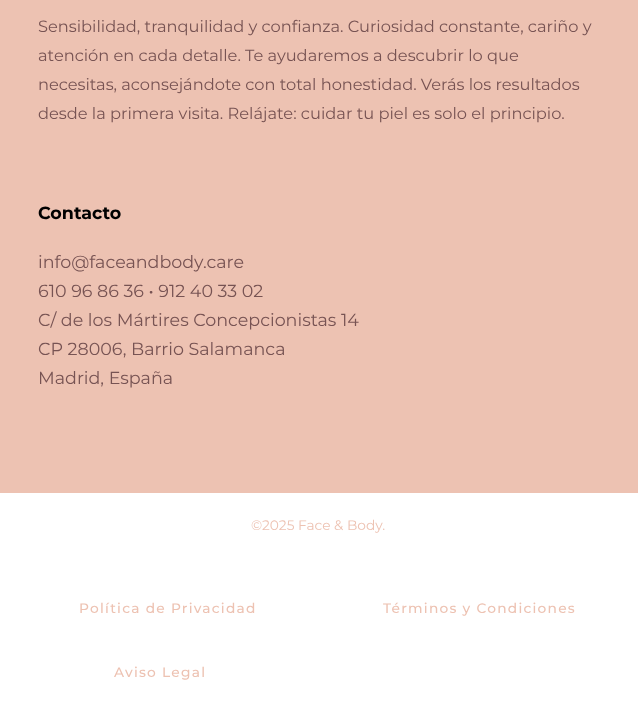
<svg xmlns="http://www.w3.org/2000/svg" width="638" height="705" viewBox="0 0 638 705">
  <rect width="100%" height="100%" fill="#edc2b2"/>
  <path d="M0 493h638v212H0z" fill="#fff"/>
  <g font-family="Montserrat" font-size="16.25" fill="#775353">
    <text x="38" y="32">Sensibilidad, tranquilidad y confianza. Curiosidad constante, cariño y</text>
    <text x="38" y="61">atención en cada detalle. Te ayudaremos a descubrir lo que</text>
    <text x="38" y="90">necesitas, aconsejándote con total honestidad. Verás los resultados</text>
    <text x="38" y="119">desde la primera visita. Relájate: cuidar tu piel es solo el principio.</text>
  </g>
  <text x="38" y="219" font-family="Montserrat" font-size="17.5" font-weight="bold" fill="#000">Contacto</text>
  <g font-family="Montserrat" font-size="17.5" fill="#775353">
    <text x="38" y="268">info@faceandbody.care</text>
    <text x="38" y="297">610 96 86 36 • 912 40 33 02</text>
    <text x="38" y="326">C/ de los Mártires Concepcionistas 14</text>
    <text x="38" y="355">CP 28006, Barrio Salamanca</text>
    <text x="38" y="384">Madrid, España</text>
  </g>
  <text x="251" y="530" font-family="Montserrat" font-size="13.75" fill="#edc2b2">©2025 Face &amp; Body.</text>
  <g font-family="Montserrat" font-size="13.75" font-weight="500" letter-spacing="1.25" fill="#edc2b2">
    <text x="79" y="613">Política de Privacidad</text>
    <text x="383" y="613">Términos y Condiciones</text>
    <text x="114" y="677">Aviso Legal</text>
  </g>
</svg>
